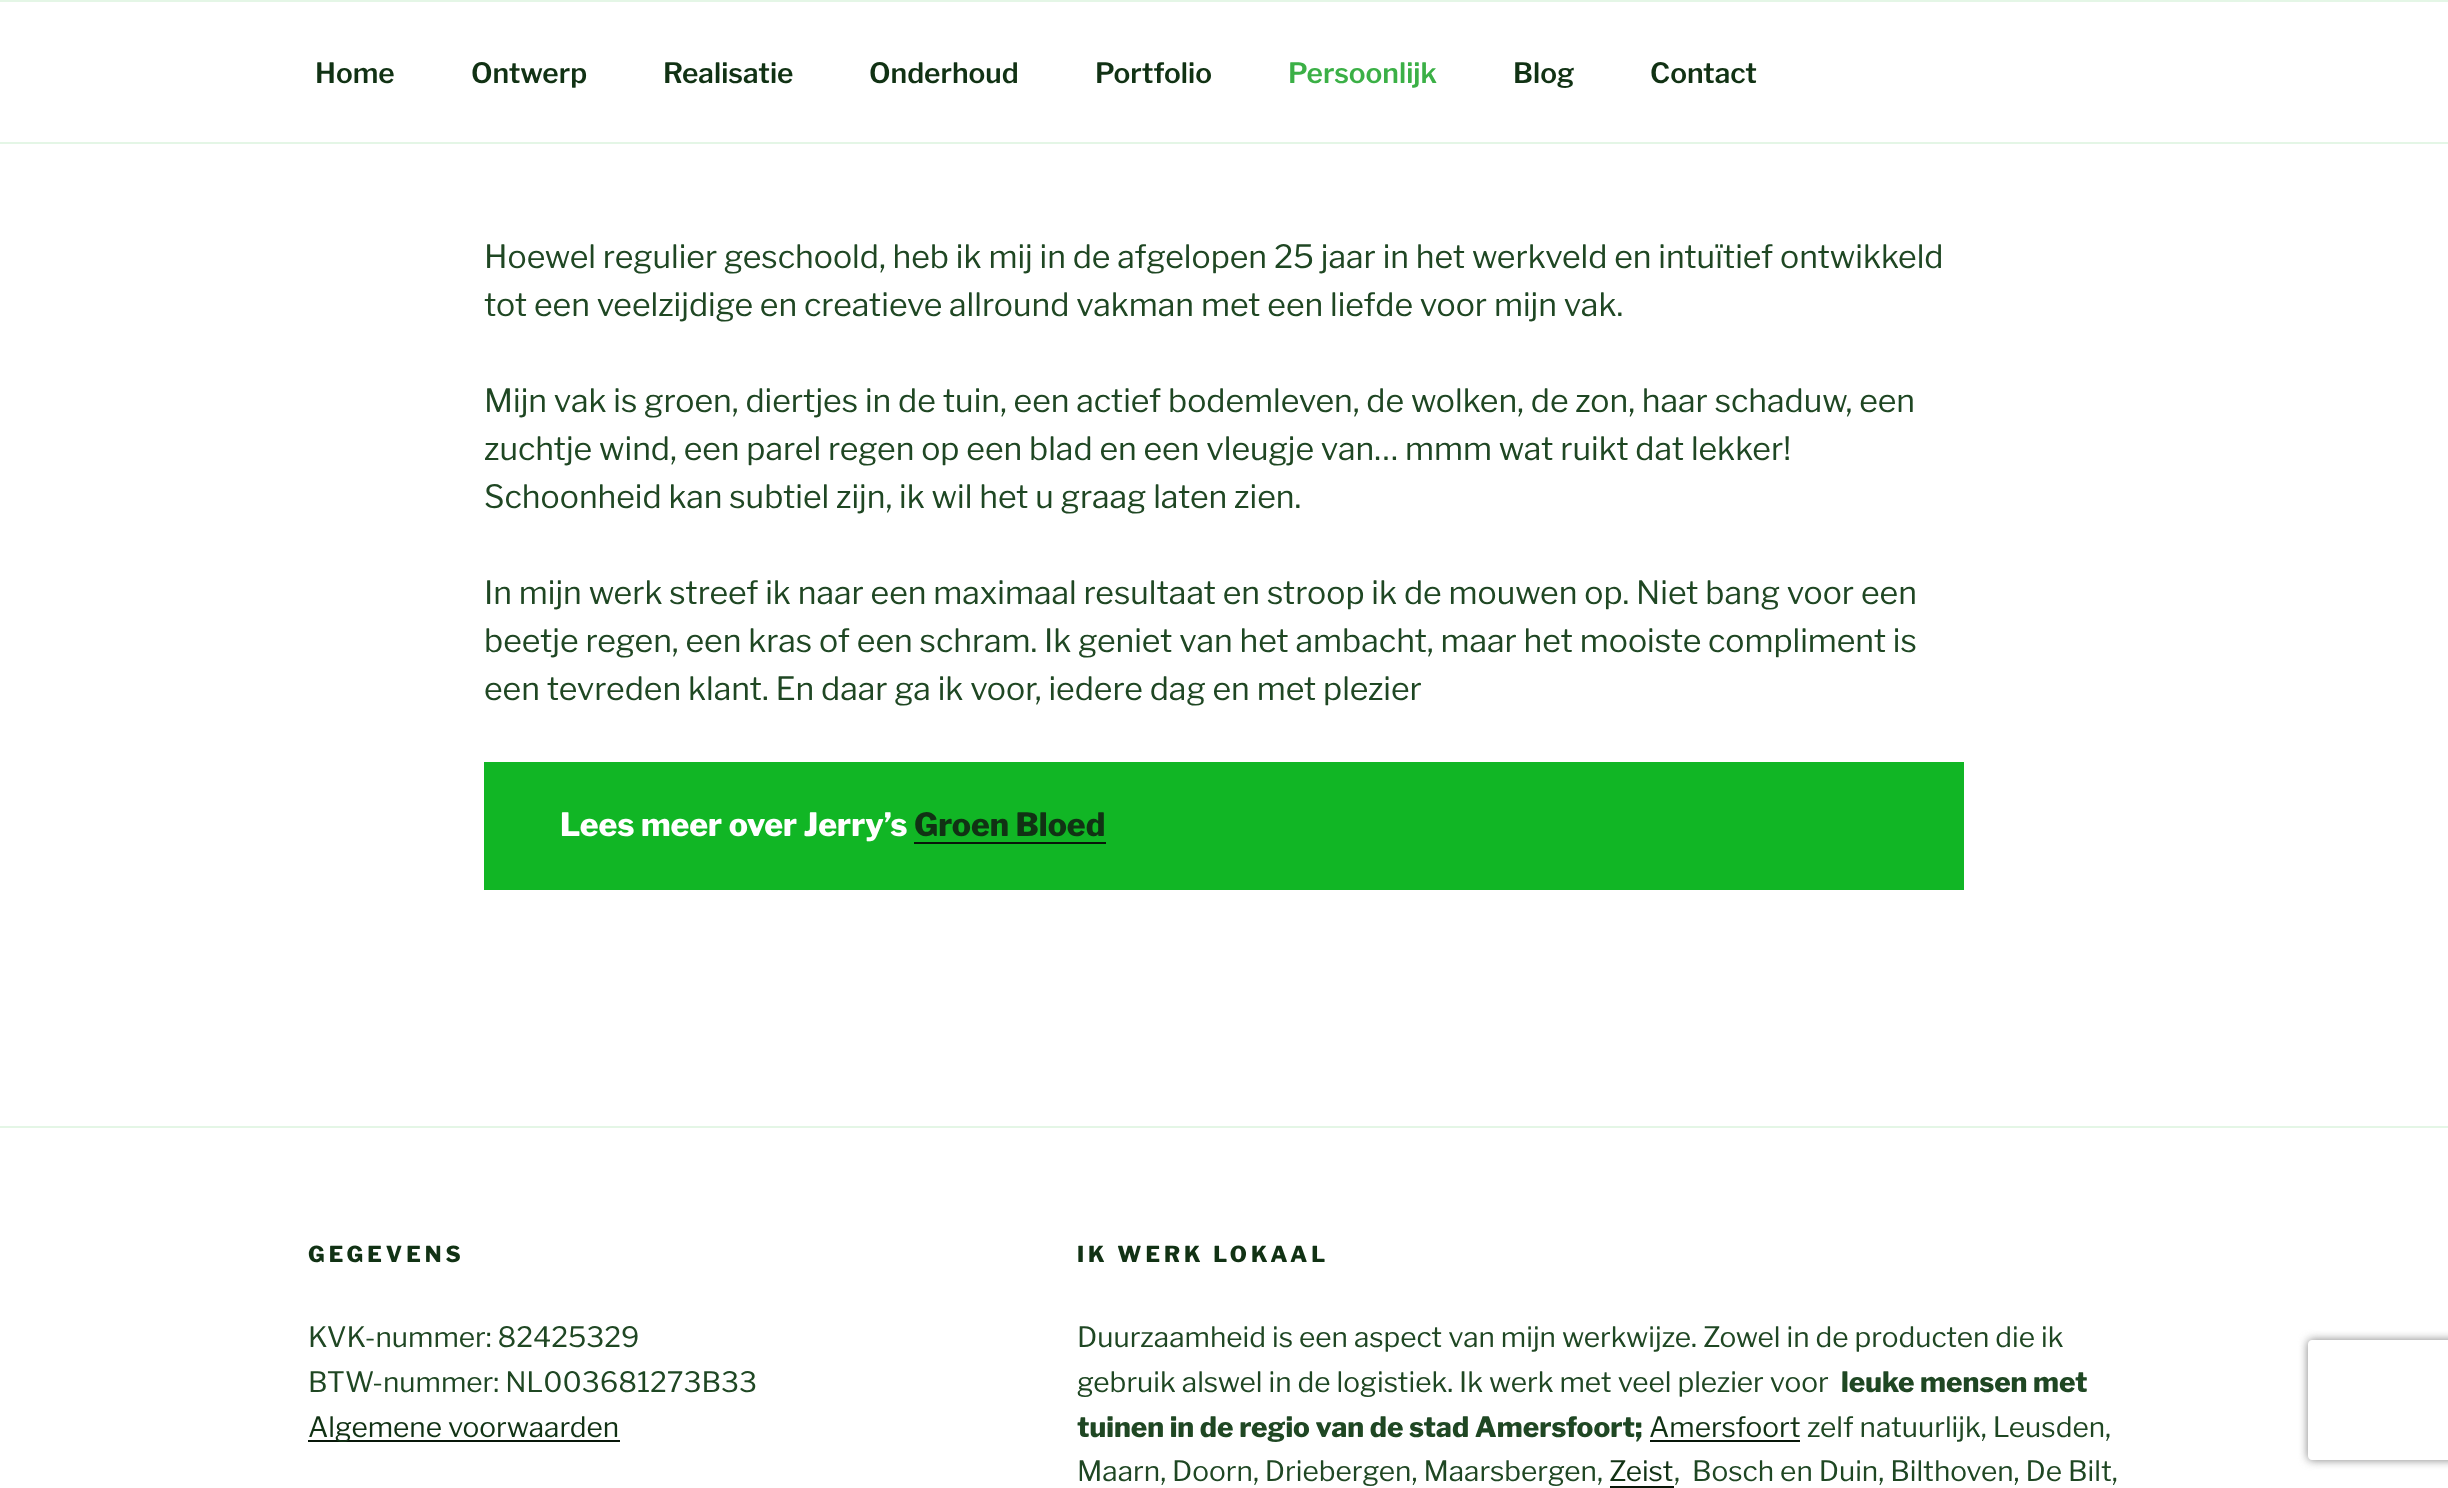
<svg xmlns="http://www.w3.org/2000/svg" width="2448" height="1488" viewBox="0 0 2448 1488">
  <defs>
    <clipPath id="clip1"><path d="M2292 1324H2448V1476H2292ZM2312 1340H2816C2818 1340 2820 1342 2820 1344V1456C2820 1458 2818 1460 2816 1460H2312C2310 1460 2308 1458 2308 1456V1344C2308 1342 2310 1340 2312 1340Z" clip-rule="evenodd"/></clipPath>
  </defs>
  <rect width="100%" height="100%" fill="#fff"/>
  <path d="M0 0h2448v2H0z" fill="#e4f6e6"/>
  <path d="M0 142h2448v2H0z" fill="#e4f6e6"/>
  <path d="M484 762h1480v128H484z" fill="#11b625"/>
  <path d="M914 842h192v2H914z" fill="#081709"/>
  <path d="M0 1126h2448v2H0z" fill="#e4f6e6"/>
  <path d="M308 1440h312v2H308z" fill="#081709"/>
  <path d="M1650 1440h150v2H1650z" fill="#081709"/>
  <path d="M1610 1486h64v2H1610z" fill="#081709"/>
  <g clip-path="url(#clip1)">
    <rect x="2308" y="1340" width="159" height="120" rx="4" fill="#808080" filter="blur(5px)"/>
  </g>
  <g font-family="'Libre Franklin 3'" font-size="28" font-weight="100" fill="#113214">
    <text x="315" y="83">Home</text>
    <text x="471" y="83">Ontwerp</text>
    <text x="663" y="83">Realisatie</text>
    <text x="869" y="83">Onderhoud</text>
    <text x="1095" y="83">Portfolio</text>
  </g>
  <text x="1288" y="83" font-family="'Libre Franklin 3'" font-size="28" font-weight="100" fill="#3bb046">Persoonlijk</text>
  <g font-family="'Libre Franklin 3'" font-size="28" font-weight="100" fill="#113214">
    <text x="1513" y="83">Blog</text>
    <text x="1650" y="83">Contact</text>
  </g>
  <g font-family="'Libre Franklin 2'" font-size="32" font-weight="100" fill="#1f4723">
    <text x="484" y="268">Hoewel regulier geschoold, heb ik mij in de afgelopen 25 jaar in het werkveld en intuïtief ontwikkeld</text>
    <text x="484" y="316">tot een veelzijdige en creatieve allround vakman met een liefde voor mijn vak.</text>
    <text x="484" y="412">Mijn vak is groen, diertjes in de tuin, een actief bodemleven, de wolken, de zon, haar schaduw, een</text>
    <text x="484" y="460">zuchtje wind, een parel regen op een blad en een vleugje van… mmm wat ruikt dat lekker!</text>
    <text x="484" y="508">Schoonheid kan subtiel zijn, ik wil het u graag laten zien.</text>
    <text x="484" y="604">In mijn werk streef ik naar een maximaal resultaat en stroop ik de mouwen op. Niet bang voor een</text>
    <text x="484" y="652">beetje regen, een kras of een schram. Ik geniet van het ambacht, maar het mooiste compliment is</text>
    <text x="484" y="700">een tevreden klant. En daar ga ik voor, iedere dag en met plezier</text>
  </g>
  <text x="560" y="836" font-family="Libre Franklin" font-size="32" font-weight="100" fill="#fff">Lees meer over Jerry’s</text>
  <text x="914" y="836" font-family="Libre Franklin" font-size="32" font-weight="100" fill="#113214">Groen Bloed</text>
  <text x="308" y="1262" font-family="Libre Franklin" font-size="22" font-weight="100" letter-spacing="4" fill="#113214">GEGEVENS</text>
  <g font-family="'Libre Franklin 2'" font-size="28" font-weight="100" fill="#1f4723">
    <text x="308" y="1347">KVK-nummer: 82425329</text>
    <text x="308" y="1392">BTW-nummer: NL003681273B33</text>
  </g>
  <text x="308" y="1437" font-family="'Libre Franklin 2'" font-size="28" font-weight="100" fill="#113214">Algemene voorwaarden</text>
  <text x="1077" y="1262" font-family="Libre Franklin" font-size="22" font-weight="100" letter-spacing="4" fill="#113214">IK WERK LOKAAL</text>
  <g font-family="'Libre Franklin 2'" font-size="28" font-weight="100" fill="#1f4723">
    <text x="1077" y="1347">Duurzaamheid is een aspect van mijn werkwijze. Zowel in de producten die ik</text>
    <text x="1077" y="1392">gebruik alswel in de logistiek. Ik werk met veel plezier voor</text>
  </g>
  <g font-family="Libre Franklin" font-size="28" font-weight="100" fill="#1f4723">
    <text x="1841" y="1392">leuke mensen met</text>
    <text x="1077" y="1437">tuinen in de regio van de stad Amersfoort;</text>
  </g>
  <text x="1649" y="1437" font-family="'Libre Franklin 2'" font-size="28" font-weight="100" fill="#113214">Amersfoort</text>
  <g font-family="'Libre Franklin 2'" font-size="28" font-weight="100" fill="#1f4723">
    <text x="1807" y="1437">zelf natuurlijk, Leusden,</text>
    <text x="1077" y="1481">Maarn, Doorn, Driebergen, Maarsbergen,</text>
  </g>
  <text x="1609" y="1481" font-family="'Libre Franklin 2'" font-size="28" font-weight="100" fill="#113214">Zeist</text>
  <text x="1674" y="1481" font-family="'Libre Franklin 2'" font-size="28" font-weight="100" fill="#1f4723" xml:space="preserve">,  Bosch en Duin, Bilthoven, De Bilt,</text>
</svg>
